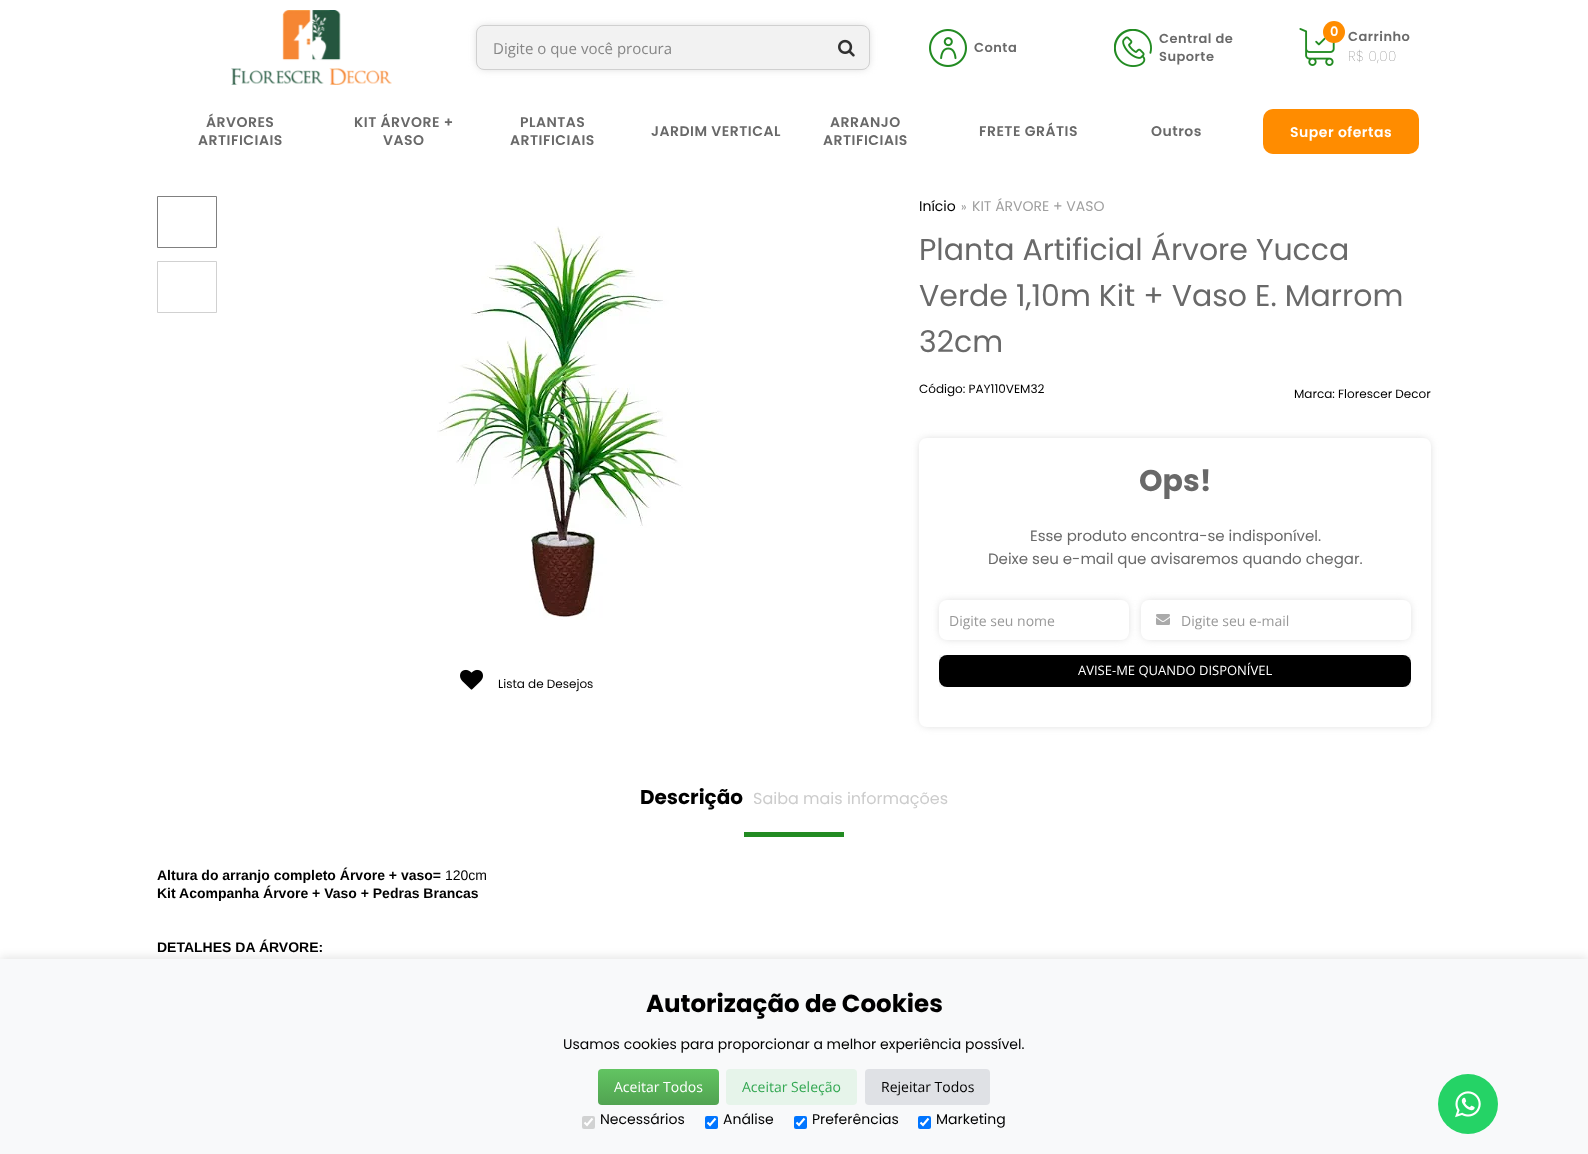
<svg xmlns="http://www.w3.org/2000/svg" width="1588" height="1154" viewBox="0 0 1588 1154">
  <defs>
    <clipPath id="clip1"><path d="M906 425H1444V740H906ZM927 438H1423C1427.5 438 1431 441.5 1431 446V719C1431 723.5 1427.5 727 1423 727H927C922.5 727 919 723.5 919 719V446C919 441.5 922.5 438 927 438Z" clip-rule="evenodd"/></clipPath>
    <clipPath id="clip2"><path d="M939 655h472v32H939z"/></clipPath>
    <linearGradient id="g1" gradientUnits="userSpaceOnUse" x1="659" y1="1069" x2="659" y2="1105"><stop offset="0" stop-color="#62c462"/><stop offset="1" stop-color="#51a351"/></linearGradient>
  </defs>
  <rect width="100%" height="100%" fill="#fff"/>
  <image x="231" y="10" width="161" height="75" href="img/1.png"/>
  <rect x="478" y="27" width="390" height="41" rx="6" fill="#ccc" filter="blur(4.5px)"/>
  <rect x="476.5" y="25.5" width="393" height="44" rx="7.5" fill="#f2f2f2" stroke="#d0d0d0"/>
  <image x="838" y="39" width="17" height="18" href="img/2.png"/>
  <image x="929" y="29" width="38" height="38" href="img/3.png"/>
  <image x="1114" y="29" width="38" height="38" href="img/4.png"/>
  <image x="1299" y="28" width="36" height="38" href="img/5.png"/>
  <circle cx="1334" cy="32" r="11" fill="#ff8c00"/>
  <rect x="1263" y="109" width="156" height="45" rx="10" fill="#ff8c00"/>
  <g clip-path="url(#clip1)">
    <rect x="921" y="440" width="508" height="285" rx="6" fill="#ccc" filter="blur(4.5px)"/>
  </g>
  <rect x="941" y="602" width="186" height="36" rx="6" fill="#ccc" filter="blur(4.5px)"/>
  <rect x="939" y="600" width="190" height="40" rx="8" fill="#fff"/>
  <rect x="1143" y="602" width="266" height="36" rx="6" fill="#ccc" filter="blur(4.5px)"/>
  <rect x="1141" y="600" width="270" height="40" rx="8" fill="#fff"/>
  <image x="1156" y="614" width="14" height="11" href="img/6.png"/>
  <g clip-path="url(#clip2)">
    <rect x="941" y="657" width="468" height="28" rx="6" fill="#ccc" filter="blur(4.5px)"/>
  </g>
  <rect x="939" y="655" width="472" height="32" rx="8" fill="#000"/>
  <path d="M157.5 196.5h59v51H157.5z" fill="none" stroke="#808080"/>
  <path d="M157.5 261.5h59v51H157.5z" fill="none" stroke="#d1d1d1"/>
  <image x="437" y="226" width="246" height="394" href="img/7.png"/>
  <image x="460" y="669" width="23" height="21" href="img/8.png"/>
  <path d="M744 832h100v5H744z" fill="#228b22"/>
  <path d="M0 957h1588v195H0z" fill="#0000001a" filter="blur(5px)"/>
  <path d="M0 959h1588v195H0z" fill="#f8f9fa"/>
  <rect x="598" y="1069" width="121" height="36" rx="4" fill="url(#g1)"/>
  <rect x="726" y="1069" width="131" height="36" rx="4" fill="#e6f4ea"/>
  <rect x="865" y="1069" width="125" height="36" rx="4" fill="#dfe1e5"/>
  <rect x="582" y="1116" width="13" height="13" rx="2" fill="#d1d2d2"/>
  <path d="M584.5 1122.5L587 1125L592.5 1118.5" fill="none" stroke="#fff" stroke-width="2.1"/>
  <rect x="705" y="1116" width="13" height="13" rx="2" fill="#0075ff"/>
  <path d="M707.5 1122.5L710 1125L715.5 1118.5" fill="none" stroke="#fff" stroke-width="2.1"/>
  <rect x="794" y="1116" width="13" height="13" rx="2" fill="#0075ff"/>
  <path d="M796.5 1122.5L799 1125L804.5 1118.5" fill="none" stroke="#fff" stroke-width="2.1"/>
  <rect x="918" y="1116" width="13" height="13" rx="2" fill="#0075ff"/>
  <path d="M920.5 1122.5L923 1125L928.5 1118.5" fill="none" stroke="#fff" stroke-width="2.1"/>
  <circle cx="1468" cy="1104" r="30" fill="#25d366"/>
  <image x="1455" y="1091" width="26" height="27" href="img/9.png"/>
  <text x="493" y="54" font-family="Open Sans" font-size="15" fill="#868686">Digite o que você procura</text>
  <g font-family="Poppins" font-size="13" font-weight="600" letter-spacing="0.5" fill="#696969">
    <text x="974" y="52">Conta</text>
    <text x="1159" y="43">Central de</text>
    <text x="1159" y="61">Suporte</text>
  </g>
  <text x="1330" y="36" font-family="Poppins" font-size="13" font-weight="600" letter-spacing="0.5" fill="#fff">0</text>
  <text x="1348" y="41" font-family="Poppins" font-size="13" font-weight="600" letter-spacing="0.5" fill="#696969">Carrinho</text>
  <text x="1348" y="61" font-family="Poppins" font-size="14" font-weight="200" letter-spacing="0.5" fill="#696969">R$ 0,00</text>
  <g font-family="Poppins" font-size="14" font-weight="600" letter-spacing="0.5" fill="#696969">
    <text x="206" y="127">ÁRVORES</text>
    <text x="198" y="145">ARTIFICIAIS</text>
    <text x="354" y="127">KIT ÁRVORE +</text>
    <text x="383" y="145">VASO</text>
    <text x="520" y="127">PLANTAS</text>
    <text x="510" y="145">ARTIFICIAIS</text>
    <text x="651" y="136">JARDIM VERTICAL</text>
    <text x="830" y="127">ARRANJO</text>
    <text x="823" y="145">ARTIFICIAIS</text>
    <text x="979" y="136">FRETE GRÁTIS</text>
    <text x="1151" y="136">Outros</text>
  </g>
  <text x="1290" y="137" font-family="Poppins" font-size="14" font-weight="600" letter-spacing="0.5" fill="#fff">Super ofertas</text>
  <text x="919" y="211" font-family="Poppins" font-size="14" fill="#000">Início</text>
  <text x="961" y="211" font-family="Poppins" font-size="12" fill="#999">»</text>
  <text x="972" y="211" font-family="Poppins" font-size="14" fill="#9f9f9f">KIT ÁRVORE + VASO</text>
  <g font-family="Poppins" font-size="30" fill="#696969">
    <text x="919" y="260">Planta Artificial Árvore Yucca</text>
    <text x="919" y="306">Verde 1,10m Kit + Vaso E. Marrom</text>
    <text x="919" y="352">32cm</text>
  </g>
  <g font-family="Poppins" font-size="12" fill="#000">
    <text x="919" y="393">Código: PAY110VEM32</text>
    <text x="1294" y="398">Marca: Florescer Decor</text>
  </g>
  <text x="1139" y="491" font-family="Poppins" font-size="30" font-weight="bold" fill="#696969">Ops!</text>
  <g font-family="Poppins" font-size="15" fill="#696969">
    <text x="1030" y="541">Esse produto encontra-se indisponível.</text>
    <text x="988" y="564">Deixe seu e-mail que avisaremos quando chegar.</text>
  </g>
  <g font-family="Open Sans" font-size="14" fill="#999">
    <text x="949" y="626">Digite seu nome</text>
    <text x="1181" y="626">Digite seu e-mail</text>
  </g>
  <text x="1078" y="675" font-family="Open Sans" font-size="13" fill="#fff">AVISE-ME QUANDO DISPONÍVEL</text>
  <text x="498" y="688" font-family="Poppins" font-size="12" fill="#000">Lista de Desejos</text>
  <text x="640" y="804" font-family="Poppins" font-size="20" font-weight="bold" fill="#000">Descrição</text>
  <text x="753" y="804" font-family="Poppins" font-size="16" fill="#ccc">Saiba mais informações</text>
  <text x="157" y="880" font-family="Liberation Sans" font-size="14" font-weight="bold" fill="#000">Altura do arranjo completo Árvore + vaso=</text>
  <text x="445" y="880" font-family="Liberation Sans" font-size="14" fill="#000">120cm</text>
  <g font-family="Liberation Sans" font-size="14" font-weight="bold" fill="#000">
    <text x="157" y="898">Kit Acompanha Árvore + Vaso + Pedras Brancas</text>
    <text x="157" y="952">DETALHES DA ÁRVORE:</text>
  </g>
  <text x="646" y="1012" font-family="Poppins" font-size="24.5" font-weight="bold" fill="#000">Autorização de Cookies</text>
  <text x="563" y="1049" font-family="Poppins" font-size="14" fill="#000">Usamos cookies para proporcionar a melhor experiência possível.</text>
  <text x="614" y="1092" font-family="Open Sans" font-size="14" fill="#fff">Aceitar Todos</text>
  <text x="742" y="1092" font-family="Open Sans" font-size="14" fill="#34a853">Aceitar Seleção</text>
  <text x="881" y="1092" font-family="Open Sans" font-size="14" fill="#000">Rejeitar Todos</text>
  <g font-family="Poppins" font-size="14" fill="#000">
    <text x="600" y="1124">Necessários</text>
    <text x="723" y="1124">Análise</text>
    <text x="812" y="1124">Preferências</text>
    <text x="936" y="1124">Marketing</text>
  </g>
</svg>
